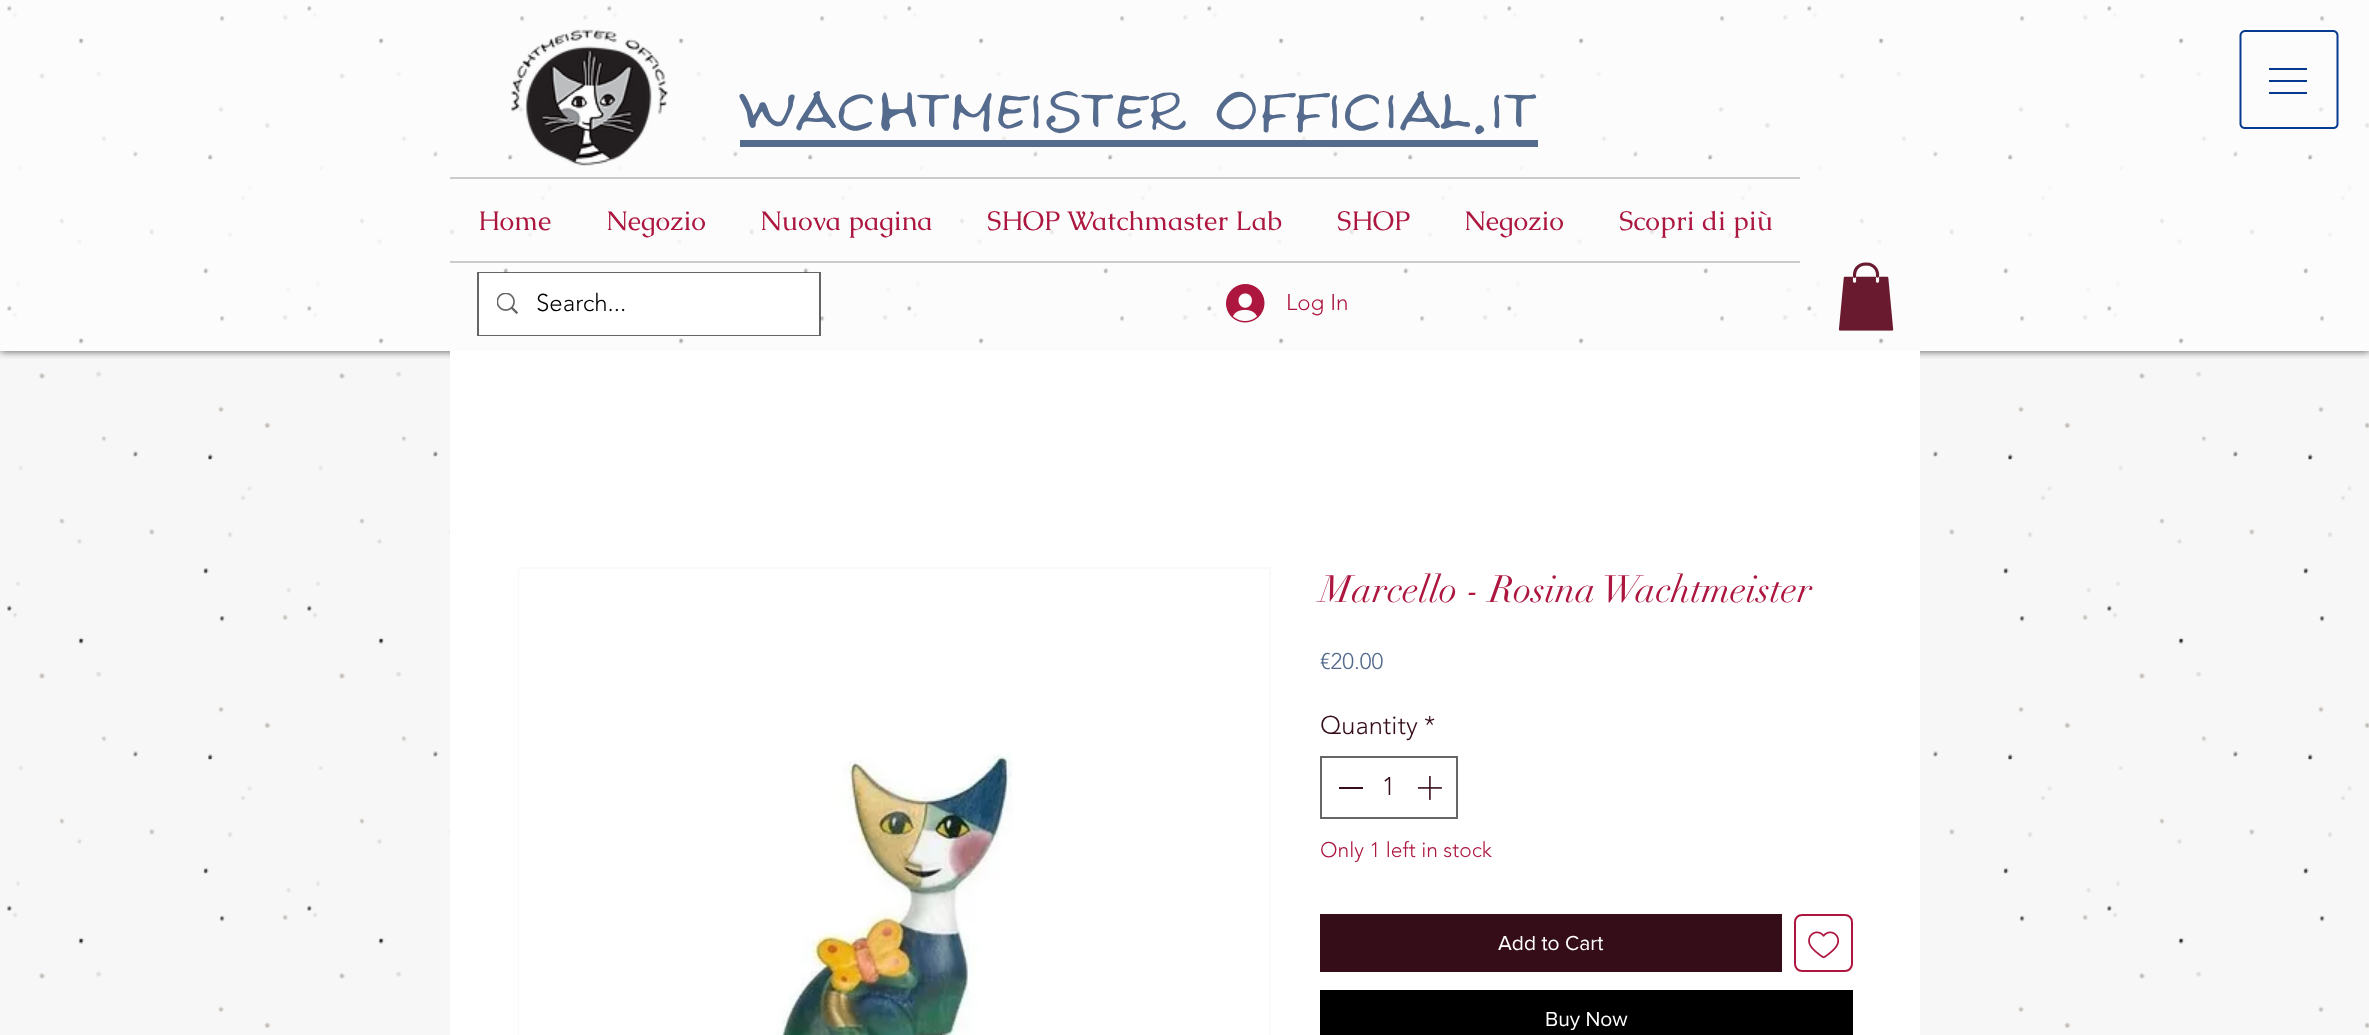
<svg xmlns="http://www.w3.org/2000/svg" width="2369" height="1035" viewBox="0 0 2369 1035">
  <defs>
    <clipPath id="clip1"><path d="M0 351h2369v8H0z"/></clipPath>
  </defs>
  <rect width="100%" height="100%" fill="#f7f7f7"/>
  <image x="7" y="5" width="2362" height="1023" href="img/1.png"/>
  <g clip-path="url(#clip1)">
    <path d="M0 0h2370v351H0z" fill="#000000b3" filter="blur(4px)"/>
  </g>
  <path d="M0 0h2369v351H0z" fill="#ffffff99"/>
  <image x="2239" y="30" width="100" height="99" href="img/2.png"/>
  <image x="511" y="29" width="157" height="137" href="img/3.png"/>
  <path d="M740 140h798v7H740z" fill="#556b8d"/>
  <path d="M450 177h1350v2H450z" fill="#cacaca"/>
  <path d="M450 261h1350v2H450z" fill="#cacaca"/>
  <path d="M478 273h342v62H478z" fill="none" stroke="#00000099" stroke-width="2"/>
  <path d="M479 273h340v62H479z" fill="#fff"/>
  <image x="497" y="293" width="21" height="21" href="img/4.png"/>
  <image x="1226" y="284" width="39" height="39" href="img/5.png"/>
  <image x="1838" y="262" width="56" height="69" href="img/6.png"/>
  <path d="M450 351h1470v684H450z" fill="#fff"/>
  <path d="M519 568h751v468H519z" fill="none" stroke="#f9f9f9" stroke-width="2"/>
  <image x="519" y="569" width="494" height="466" href="img/7.png"/>
  <path d="M1321 757h136v61H1321z" fill="none" stroke="#666" stroke-width="2"/>
  <path d="M1339 787h24v2H1339z" fill="#350d18"/>
  <image x="1417" y="775" width="25" height="25" href="img/8.png"/>
  <path d="M1320 914h462v58H1320z" fill="#350d18"/>
  <rect x="1795" y="915" width="57" height="56" rx="7" fill="none" stroke="#ac163f" stroke-width="2"/>
  <image x="1808" y="931" width="32" height="28" href="img/9.png"/>
  <path d="M1320 990h533v45H1320z" fill="#000"/>
  <text x="740" y="135" font-family="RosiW" font-size="82.5" fill="#556b8d">wachtmeister official.it</text>
  <g font-family="Caudex" font-size="27" fill="#ac163f">
    <text x="478" y="230">Home</text>
    <text x="606" y="230">Negozio</text>
    <text x="760" y="230">Nuova pagina</text>
    <text x="987" y="230">SHOP Watchmaster Lab</text>
    <text x="1337" y="230">SHOP</text>
    <text x="1464" y="230">Negozio</text>
    <text x="1619" y="230">Scopri di più</text>
  </g>
  <text x="536" y="311" font-family="'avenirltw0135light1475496'" font-size="24" font-weight="300" fill="#000">Search...</text>
  <text x="1286" y="310" font-family="'avenirltw0135light1475496'" font-size="22.5" font-weight="300" fill="#ac163f">Log In</text>
  <text x="1320" y="602" font-family="didot" font-size="37.5" fill="#ac163f">Marcello - Rosina Wachtmeister</text>
  <text x="1320" y="669" font-family="'avenirltw0135light1475496'" font-size="22.5" font-weight="300" fill="#556b8d">€20.00</text>
  <g font-family="'avenirltw0135light1475496'" font-size="25.5" font-weight="300" fill="#350d18">
    <text x="1320" y="734">Quantity</text>
    <text x="1424" y="734">*</text>
    <text x="1382" y="795">1</text>
  </g>
  <text x="1320" y="857" font-family="'avenirltw0135light1475496'" font-size="21" font-weight="300" fill="#ac163f">Only 1 left in stock</text>
  <g font-family="'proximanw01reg'" font-size="21" fill="#fff">
    <text x="1498" y="950">Add to Cart</text>
    <text x="1545" y="1026">Buy Now</text>
  </g>
</svg>
